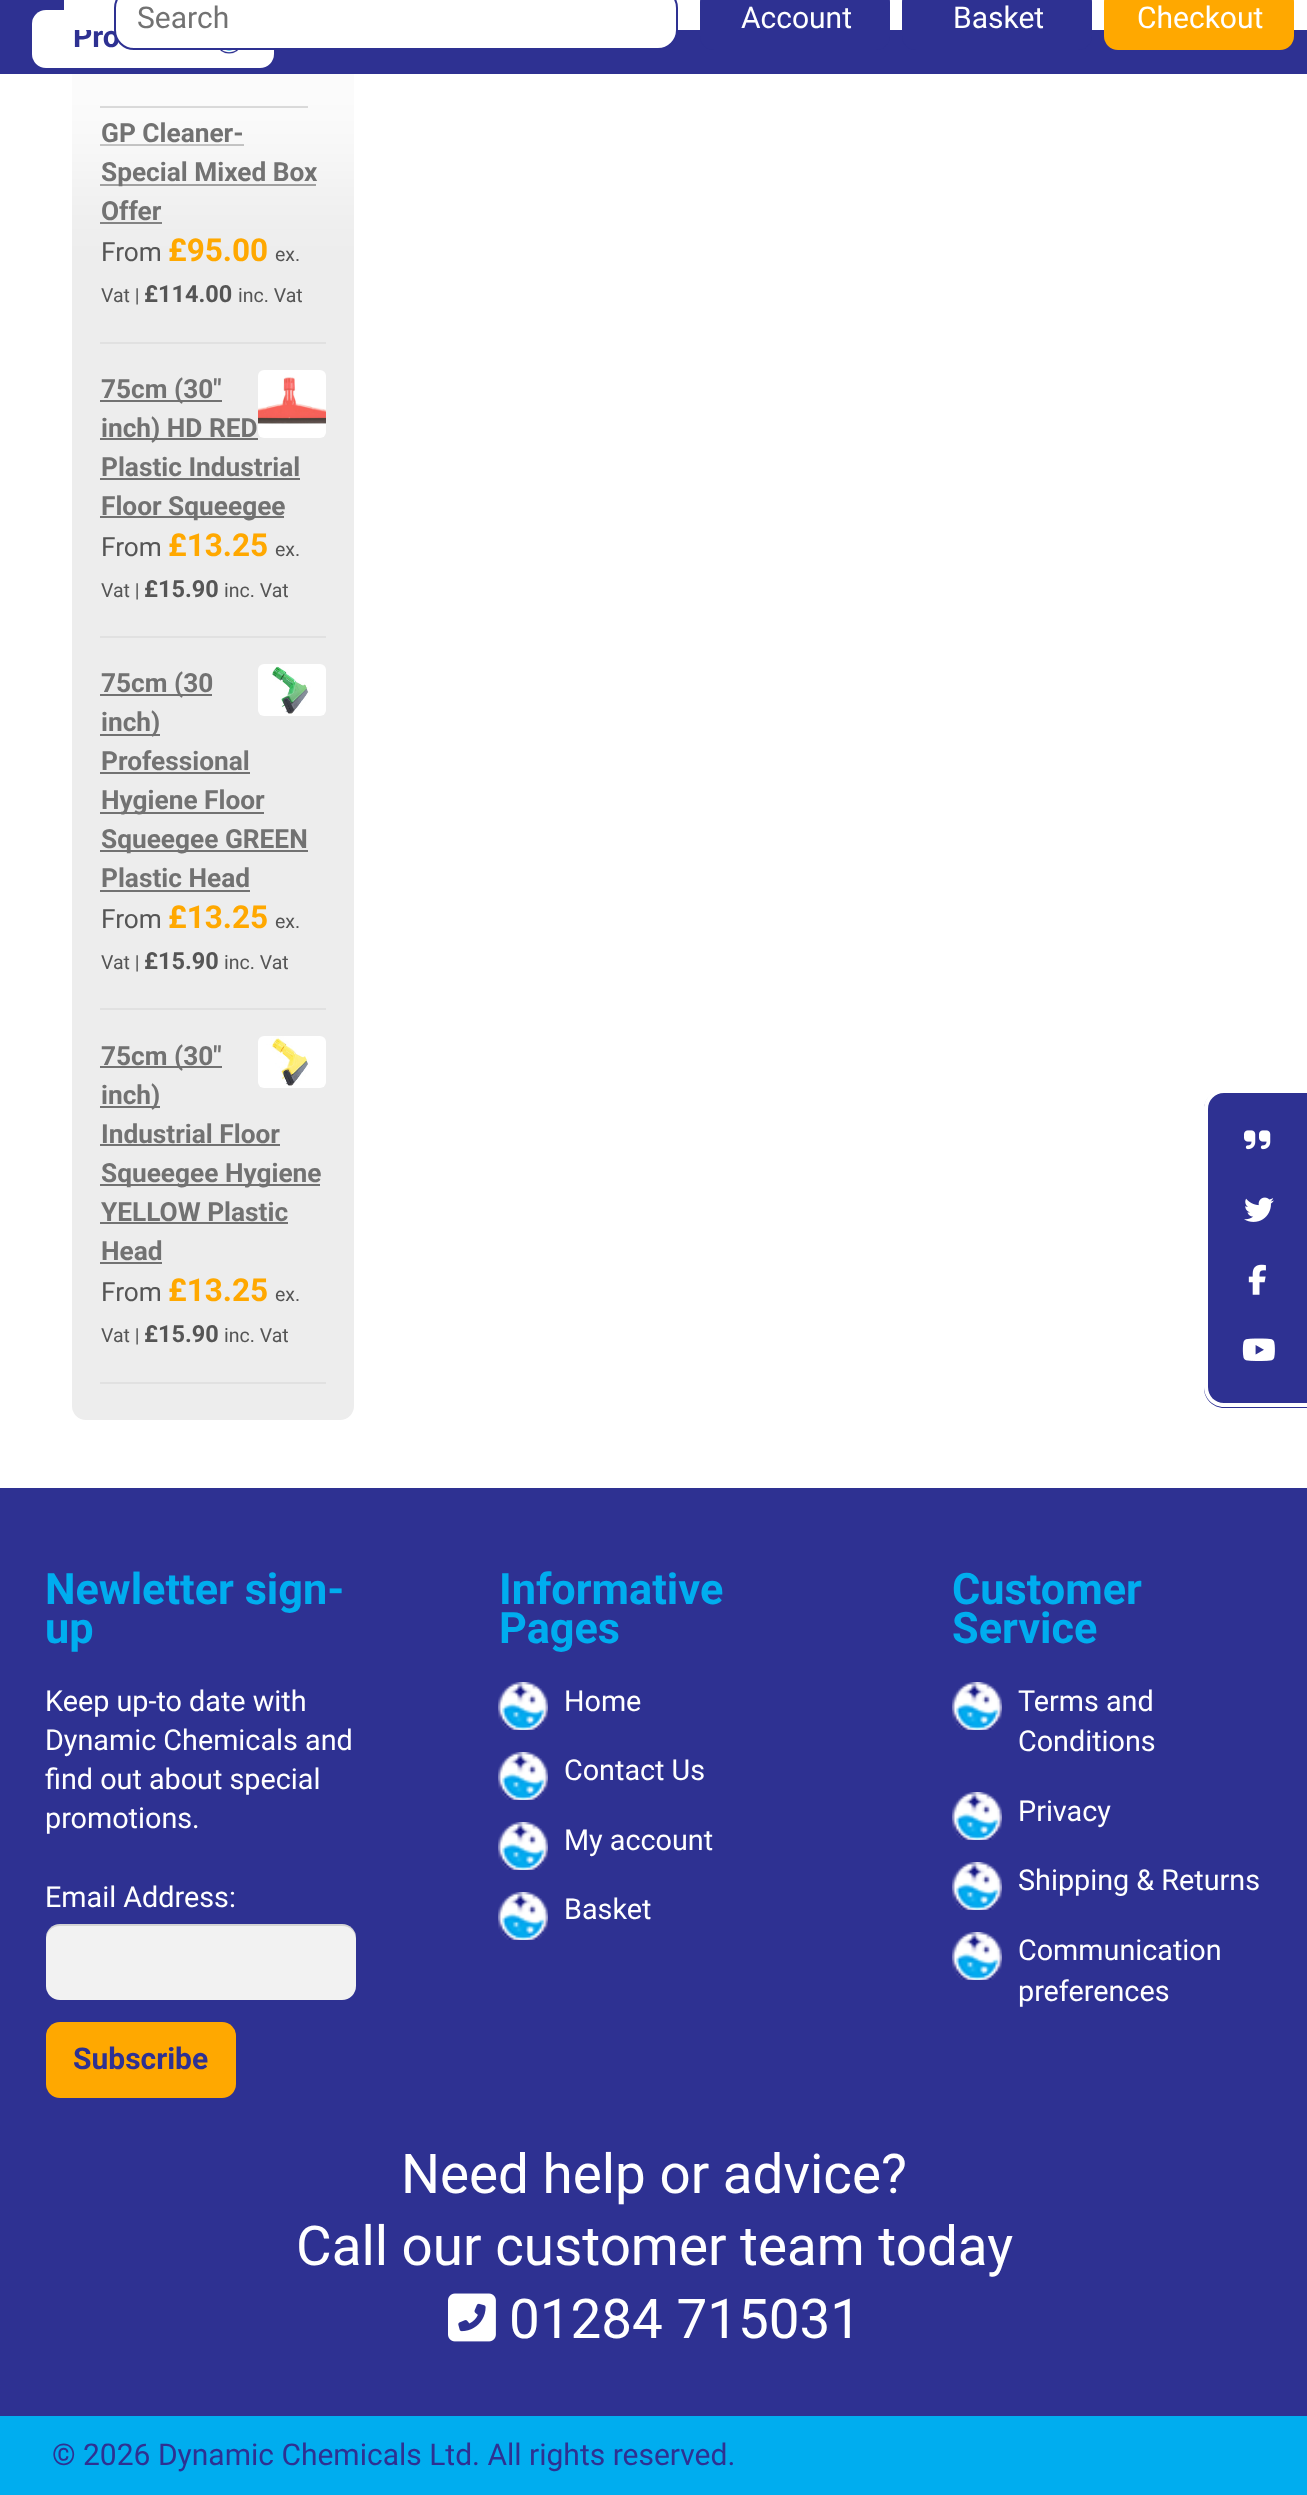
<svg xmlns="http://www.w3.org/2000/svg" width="1307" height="2495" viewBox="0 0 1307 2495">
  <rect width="100%" height="100%" fill="#fff"/>
  <rect x="72" y="-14" width="282" height="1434" rx="14" fill="#ededed"/>
  <path d="M100 106h208v2H100z" fill="#727272"/>
  <path d="M100 144h144v2H100z" fill="#727272"/>
  <path d="M100 184h216v2H100z" fill="#727272"/>
  <path d="M100 222h62v2H100z" fill="#727272"/>
  <path d="M-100 -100h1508v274H-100z" fill="#ffffffcc" filter="blur(50px)"/>
  <path d="M0 0h1307v74H0z" fill="#2e3192"/>
  <rect x="32" y="10" width="242" height="58" rx="14" fill="#fff"/>
  <image x="215" y="50" width="29" height="4" href="img/1.png"/>
  <path d="M100 342h226v2H100z" fill="#e1e1e1"/>
  <path d="M100 636h226v2H100z" fill="#e1e1e1"/>
  <path d="M100 400h122v2H100z" fill="#727272"/>
  <image x="258" y="370" width="68" height="68" href="img/2.png"/>
  <path d="M100 438h158v2H100z" fill="#727272"/>
  <path d="M100 478h200v2H100z" fill="#727272"/>
  <path d="M100 516h184v2H100z" fill="#727272"/>
  <path d="M100 1008h226v2H100z" fill="#e1e1e1"/>
  <path d="M100 694h112v2H100z" fill="#727272"/>
  <image x="258" y="664" width="68" height="52" href="img/3.png"/>
  <path d="M100 734h60v2H100z" fill="#727272"/>
  <path d="M100 772h150v2H100z" fill="#727272"/>
  <path d="M100 812h164v2H100z" fill="#727272"/>
  <path d="M100 850h208v2H100z" fill="#727272"/>
  <path d="M100 890h150v2H100z" fill="#727272"/>
  <path d="M100 1382h226v2H100z" fill="#e1e1e1"/>
  <path d="M100 1066h122v2H100z" fill="#727272"/>
  <image x="258" y="1036" width="68" height="52" href="img/4.png"/>
  <path d="M100 1106h60v2H100z" fill="#727272"/>
  <path d="M100 1144h180v2H100z" fill="#727272"/>
  <path d="M100 1184h220v2H100z" fill="#727272"/>
  <path d="M100 1222h188v2H100z" fill="#727272"/>
  <path d="M100 1262h62v2H100z" fill="#727272"/>
  <path d="M0 1488h1307v928H0z" fill="#2e3192"/>
  <rect x="46" y="1924" width="310" height="76" rx="14" fill="#f2f2f2"/>
  <path d="M60 1926H342C350 1926 356 1932 356 1940V1938C356 1930 350 1924 342 1924H60C52 1924 46 1930 46 1938V1940C46 1932 52 1926 60 1926Z" fill="#0000001f"/>
  <rect x="46" y="2022" width="190" height="76" rx="14" fill="#ffa800"/>
  <image x="498" y="1682" width="50" height="48" href="img/5.png"/>
  <image x="498" y="1752" width="50" height="48" href="img/5.png"/>
  <image x="498" y="1822" width="50" height="48" href="img/5.png"/>
  <image x="498" y="1892" width="50" height="48" href="img/5.png"/>
  <image x="952" y="1682" width="50" height="48" href="img/6.png"/>
  <image x="952" y="1792" width="50" height="48" href="img/6.png"/>
  <image x="952" y="1862" width="50" height="48" href="img/6.png"/>
  <image x="952" y="1932" width="50" height="48" href="img/6.png"/>
  <image x="448" y="2293" width="48" height="49" href="img/7.png"/>
  <path d="M0 2416h1307v79H0z" fill="#00adef"/>
  <path d="M1224 1090H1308V1408H1224C1213 1408 1204 1399 1204 1388V1110C1204 1099 1213 1090 1224 1090Z" fill="#2e3192"/>
  <path d="M1224 1089H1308V1407H1224C1213 1407 1204 1398 1204 1387V1109C1204 1098 1213 1089 1224 1089ZM1224 1093H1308V1403H1224C1215 1403 1208 1396 1208 1387V1109C1208 1100 1215 1093 1224 1093Z" fill="#fff" fill-rule="evenodd"/>
  <image x="1244" y="1130" width="27" height="20" href="img/8.png"/>
  <image x="1244" y="1197" width="30" height="25" href="img/9.png"/>
  <image x="1248" y="1264" width="18" height="31" href="img/10.png"/>
  <image x="1242" y="1338" width="33" height="23" href="img/11.png"/>
  <text x="73" y="47" font-family="Roboto" font-size="30" font-weight="bold" fill="#2e3192">Pro</text>
  <path d="M64 0h1243v30H64z" fill="#fff"/>
  <rect x="115" y="-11" width="562" height="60" rx="19" fill="#fff" stroke="#2e3192" stroke-width="2"/>
  <text x="137" y="28" font-family="Roboto" font-size="30" fill="#727272">Search</text>
  <rect x="1104" y="-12" width="190" height="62" rx="14" fill="#ffa800"/>
  <text x="1137" y="28" font-family="Roboto" font-size="30" fill="#fff">Checkout</text>
  <rect x="902" y="-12" width="190" height="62" rx="14" fill="#2e3192"/>
  <text x="953" y="28" font-family="Roboto" font-size="30" fill="#fff">Basket</text>
  <rect x="700" y="-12" width="190" height="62" rx="14" fill="#2e3192"/>
  <text x="741" y="28" font-family="Roboto" font-size="30" fill="#fff">Account</text>
  <g font-family="Roboto" font-size="26.25" font-weight="bold" fill="#727272">
    <text x="101" y="142">GP Cleaner-</text>
    <text x="101" y="181">Special Mixed Box</text>
    <text x="101" y="220">Offer</text>
  </g>
  <text x="101" y="261" font-family="Roboto" font-size="26.25" fill="#555">From</text>
  <text x="168" y="261" font-family="Roboto" font-size="31.5" font-weight="bold" fill="#ffa800">£95.00</text>
  <g font-family="Roboto" font-size="19.5" fill="#555">
    <text x="275" y="261">ex.</text>
    <text x="101" y="302">Vat |</text>
  </g>
  <text x="144" y="302" font-family="Roboto" font-size="23.5" font-weight="bold" fill="#555">£114.00</text>
  <text x="238" y="302" font-family="Roboto" font-size="19.5" fill="#555">inc. Vat</text>
  <g font-family="Roboto" font-size="26.25" font-weight="bold" fill="#727272">
    <text x="101" y="398">75cm (30"</text>
    <text x="101" y="437">inch) HD RED</text>
    <text x="101" y="476">Plastic Industrial</text>
    <text x="101" y="515">Floor Squeegee</text>
  </g>
  <text x="101" y="556" font-family="Roboto" font-size="26.25" fill="#555">From</text>
  <text x="168" y="556" font-family="Roboto" font-size="31.5" font-weight="bold" fill="#ffa800">£13.25</text>
  <g font-family="Roboto" font-size="19.5" fill="#555">
    <text x="275" y="556">ex.</text>
    <text x="101" y="597">Vat |</text>
  </g>
  <text x="144" y="597" font-family="Roboto" font-size="23.5" font-weight="bold" fill="#555">£15.90</text>
  <text x="224" y="597" font-family="Roboto" font-size="19.5" fill="#555">inc. Vat</text>
  <g font-family="Roboto" font-size="26.25" font-weight="bold" fill="#727272">
    <text x="101" y="692">75cm (30</text>
    <text x="101" y="731">inch)</text>
    <text x="101" y="770">Professional</text>
    <text x="101" y="809">Hygiene Floor</text>
    <text x="101" y="848">Squeegee GREEN</text>
    <text x="101" y="887">Plastic Head</text>
  </g>
  <text x="101" y="928" font-family="Roboto" font-size="26.25" fill="#555">From</text>
  <text x="168" y="928" font-family="Roboto" font-size="31.5" font-weight="bold" fill="#ffa800">£13.25</text>
  <g font-family="Roboto" font-size="19.5" fill="#555">
    <text x="275" y="928">ex.</text>
    <text x="101" y="969">Vat |</text>
  </g>
  <text x="144" y="969" font-family="Roboto" font-size="23.5" font-weight="bold" fill="#555">£15.90</text>
  <text x="224" y="969" font-family="Roboto" font-size="19.5" fill="#555">inc. Vat</text>
  <g font-family="Roboto" font-size="26.25" font-weight="bold" fill="#727272">
    <text x="101" y="1065">75cm (30"</text>
    <text x="101" y="1104">inch)</text>
    <text x="101" y="1143">Industrial Floor</text>
    <text x="101" y="1182">Squeegee Hygiene</text>
    <text x="101" y="1221">YELLOW Plastic</text>
    <text x="101" y="1260">Head</text>
  </g>
  <text x="101" y="1301" font-family="Roboto" font-size="26.25" fill="#555">From</text>
  <text x="168" y="1301" font-family="Roboto" font-size="31.5" font-weight="bold" fill="#ffa800">£13.25</text>
  <g font-family="Roboto" font-size="19.5" fill="#555">
    <text x="275" y="1301">ex.</text>
    <text x="101" y="1342">Vat |</text>
  </g>
  <text x="144" y="1342" font-family="Roboto" font-size="23.5" font-weight="bold" fill="#555">£15.90</text>
  <text x="224" y="1342" font-family="Roboto" font-size="19.5" fill="#555">inc. Vat</text>
  <g font-family="Roboto" font-size="43.25" font-weight="bold" fill="#00adef">
    <text x="45" y="1604">Newletter sign-</text>
    <text x="45" y="1643">up</text>
  </g>
  <g font-family="Roboto" font-size="28.75" fill="#fff">
    <text x="45" y="1711">Keep up-to date with</text>
    <text x="45" y="1750">Dynamic Chemicals and</text>
    <text x="45" y="1789">find out about special</text>
    <text x="45" y="1828">promotions.</text>
    <text x="45" y="1907">Email Address:</text>
  </g>
  <text x="73" y="2069" font-family="Roboto" font-size="30" font-weight="bold" fill="#2e3192">Subscribe</text>
  <g font-family="Roboto" font-size="43.25" font-weight="bold" fill="#00adef">
    <text x="499" y="1604">Informative</text>
    <text x="499" y="1643">Pages</text>
  </g>
  <g font-family="Roboto" font-size="28.75" fill="#fff">
    <text x="564" y="1711">Home</text>
    <text x="564" y="1780">Contact Us</text>
    <text x="564" y="1850">My account</text>
    <text x="564" y="1919">Basket</text>
  </g>
  <g font-family="Roboto" font-size="43.25" font-weight="bold" fill="#00adef">
    <text x="952" y="1604">Customer</text>
    <text x="952" y="1643">Service</text>
  </g>
  <g font-family="Roboto" font-size="28.75" fill="#fff">
    <text x="1018" y="1711">Terms and</text>
    <text x="1018" y="1751">Conditions</text>
    <text x="1018" y="1821">Privacy</text>
    <text x="1018" y="1890">Shipping &amp; Returns</text>
    <text x="1018" y="1960">Communication</text>
    <text x="1018" y="2001">preferences</text>
  </g>
  <g font-family="Roboto" font-size="54.75" fill="#fff">
    <text x="401" y="2193">Need help or advice?</text>
    <text x="296" y="2265">Call our customer team today</text>
    <text x="509" y="2338">01284 715031</text>
  </g>
  <text x="52" y="2465" font-family="Roboto" font-size="30" fill="#2e3192">© 2026 Dynamic Chemicals Ltd. All rights reserved.</text>
</svg>
